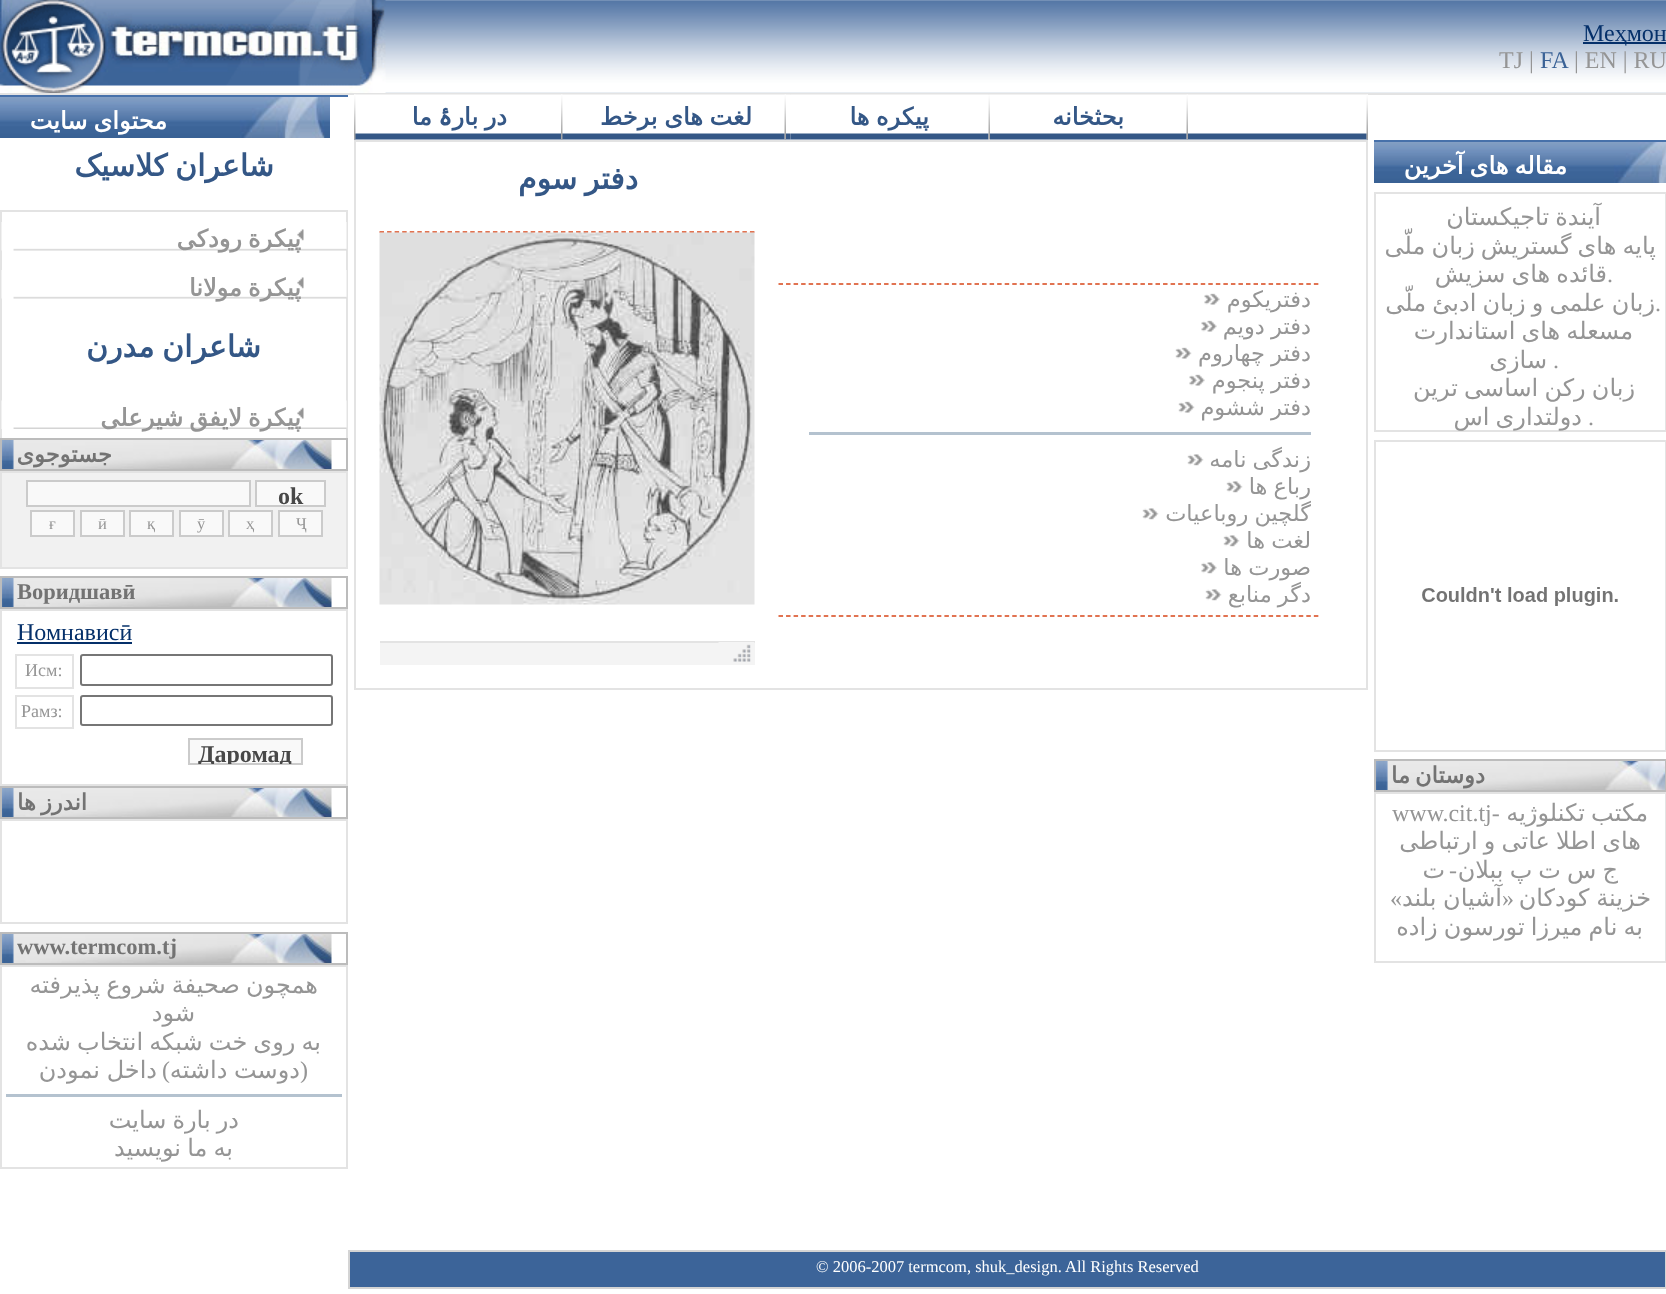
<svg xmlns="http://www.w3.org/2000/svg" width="1666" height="1294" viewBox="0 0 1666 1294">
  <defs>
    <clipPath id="clip1"><path d="M189 740h113v24H189z"/></clipPath>
  </defs>
  <rect width="100%" height="100%" fill="#fff"/>
  <image x="385" y="0" width="821" height="93" href="img/1.png"/>
  <path d="M0 93h1666v2H0z" fill="#e3e3e3"/>
  <image x="0" y="0" width="386" height="93" href="img/2.png"/>
  <image x="1206" y="0" width="460" height="93" href="img/3.png"/>
  <path d="M1583 42h83v2H1583z" fill="#05306a"/>
  <image x="1191" y="94" width="176" height="46" href="img/4.png"/>
  <image x="990" y="94" width="197" height="46" href="img/12.png"/>
  <image x="1186" y="94" width="5" height="46" href="img/5.png"/>
  <image x="1186" y="94" width="2" height="46" href="img/6.png"/>
  <image x="567" y="94" width="218" height="46" href="img/14.png"/>
  <image x="784" y="94" width="7" height="46" href="img/8.png"/>
  <image x="790" y="94" width="199" height="46" href="img/13.png"/>
  <image x="988" y="94" width="2" height="46" href="img/7.png"/>
  <image x="784" y="94" width="2" height="46" href="img/6.png"/>
  <image x="561" y="94" width="6" height="46" href="img/9.png"/>
  <image x="561" y="94" width="2" height="46" href="img/10.png"/>
  <image x="354" y="94" width="6" height="46" href="img/9.png"/>
  <image x="354" y="94" width="2" height="46" href="img/10.png"/>
  <image x="1366" y="94" width="2" height="46" href="img/11.png"/>
  <image x="1366" y="94" width="2" height="46" href="img/6.png"/>
  <image x="360" y="94" width="201" height="46" href="img/15.png"/>
  <image x="1374" y="142" width="292" height="41" href="img/16.png"/>
  <path d="M1374 140h292v2H1374z" fill="#4771aa"/>
  <path d="M1375 193h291v238H1375z" fill="none" stroke="#e3e3e3" stroke-width="2"/>
  <path d="M1375 441h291v310H1375z" fill="none" stroke="#e3e3e3" stroke-width="2"/>
  <image x="1422" y="587" width="196" height="19" href="img/17.png"/>
  <image x="1376" y="761" width="289" height="29" href="img/18.png"/>
  <path d="M1375 760h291v31H1375z" fill="none" stroke="#bcbcbc" stroke-width="2"/>
  <path d="M1375 793h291v169H1375z" fill="none" stroke="#e3e3e3" stroke-width="2"/>
  <path d="M355 141h1012v548H355z" fill="none" stroke="#e3e3e3" stroke-width="2"/>
  <path d="M379.5 232H754.5" fill="none" stroke="#d84519" stroke-width="1.5" stroke-dasharray="4.5 3.06"/>
  <path d="M778.5 284H1318.5" fill="none" stroke="#d84519" stroke-width="1.5" stroke-dasharray="4.5 3.04"/>
  <path d="M778.5 616H1318.5" fill="none" stroke="#d84519" stroke-width="1.5" stroke-dasharray="4.5 3.04"/>
  <image x="1204" y="293" width="16" height="12" href="img/19.png"/>
  <image x="1201" y="320" width="16" height="12" href="img/19.png"/>
  <image x="1175" y="347" width="17" height="12" href="img/20.png"/>
  <image x="1189" y="374" width="16" height="12" href="img/19.png"/>
  <image x="1178" y="401" width="17" height="12" href="img/20.png"/>
  <path d="M809 432h502v3H809z" fill="#b4c2cf"/>
  <image x="1187" y="454" width="17" height="12" href="img/21.png"/>
  <image x="1226" y="481" width="17" height="12" href="img/22.png"/>
  <image x="1142" y="508" width="17" height="12" href="img/21.png"/>
  <image x="1223" y="535" width="17" height="12" href="img/22.png"/>
  <image x="1201" y="562" width="16" height="12" href="img/23.png"/>
  <image x="1205" y="589" width="17" height="12" href="img/21.png"/>
  <image x="379" y="232" width="376" height="373" href="img/24.png"/>
  <path d="M380 643h375v22H380z" fill="#f4f4f4"/>
  <path d="M380 641h375v2H380z" fill="#e3e3e3"/>
  <image x="718" y="642" width="37" height="20" href="img/25.png"/>
  <image x="0" y="97" width="330" height="41" href="img/26.png"/>
  <path d="M0 95h348v2H0z" fill="#4771aa"/>
  <path d="M1 211h346v282H1z" fill="none" stroke="#e3e3e3" stroke-width="2"/>
  <image x="1" y="222" width="346" height="29" href="img/27.png"/>
  <image x="1" y="270" width="346" height="29" href="img/27.png"/>
  <image x="1" y="400" width="346" height="29" href="img/28.png"/>
  <image x="2" y="440" width="330" height="29" href="img/29.png"/>
  <path d="M1 439h346v31H1z" fill="none" stroke="#bcbcbc" stroke-width="2"/>
  <path d="M1 472h346v96H1z" fill="#f1f1f1" stroke="#e3e3e3" stroke-width="2"/>
  <path d="M256 481h69v25H256z" fill="#f9f9f9" stroke="#cbcbcb" stroke-width="2"/>
  <path d="M27 481h223v25H27z" fill="#f9f9f9" stroke="#cbcbcb" stroke-width="2"/>
  <path d="M279 511h43v25H279z" fill="#f9f9f9" stroke="#cbcbcb" stroke-width="2"/>
  <path d="M229 511h43v25H229z" fill="#f9f9f9" stroke="#cbcbcb" stroke-width="2"/>
  <path d="M180 511h43v25H180z" fill="#f9f9f9" stroke="#cbcbcb" stroke-width="2"/>
  <path d="M130 511h43v25H130z" fill="#f9f9f9" stroke="#cbcbcb" stroke-width="2"/>
  <path d="M81 511h43v25H81z" fill="#f9f9f9" stroke="#cbcbcb" stroke-width="2"/>
  <path d="M31 511h43v25H31z" fill="#f9f9f9" stroke="#cbcbcb" stroke-width="2"/>
  <image x="2" y="578" width="330" height="29" href="img/29.png"/>
  <path d="M1 577h346v31H1z" fill="none" stroke="#bcbcbc" stroke-width="2"/>
  <path d="M1 610h346v175H1z" fill="none" stroke="#e3e3e3" stroke-width="2"/>
  <path d="M17 642h115v2H17z" fill="#05306a"/>
  <rect x="81" y="655" width="251" height="30" rx="2" fill="none" stroke="#767676" stroke-width="2"/>
  <path d="M16 655h57v33H16z" fill="none" stroke="#e3e3e3" stroke-width="2"/>
  <rect x="81" y="696" width="251" height="29" rx="2" fill="none" stroke="#767676" stroke-width="2"/>
  <path d="M16 696h57v32H16z" fill="none" stroke="#e3e3e3" stroke-width="2"/>
  <path d="M189 739h113v25H189z" fill="#f9f9f9" stroke="#cbcbcb" stroke-width="2"/>
  <image x="2" y="788" width="330" height="29" href="img/29.png"/>
  <path d="M1 787h346v31H1z" fill="none" stroke="#bcbcbc" stroke-width="2"/>
  <path d="M1 820h346v103H1z" fill="none" stroke="#e3e3e3" stroke-width="2"/>
  <image x="2" y="934" width="330" height="29" href="img/30.png"/>
  <path d="M1 933h346v31H1z" fill="none" stroke="#bcbcbc" stroke-width="2"/>
  <path d="M1 966h346v202H1z" fill="none" stroke="#e3e3e3" stroke-width="2"/>
  <path d="M6 1094h336v3H6z" fill="#b4c2cf"/>
  <path d="M349 1251h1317v37H349z" fill="#3c6499" stroke="#d4d4d4" stroke-width="2"/>
  <text x="1583" y="41" font-family="Liberation Serif" font-size="24" fill="#05306a">Меҳмон</text>
  <text x="1574" y="68" font-family="Liberation Serif" font-size="24" fill="#959595">| EN | RU</text>
  <text x="1540" y="68" font-family="Liberation Serif" font-size="24" fill="#3a6296">FA</text>
  <text x="1499" y="68" font-family="Liberation Serif" font-size="24" fill="#959595">TJ |</text>
  <g font-family="DejaVu Sans" font-size="24" font-weight="bold" direction="rtl" fill="#345786">
    <text x="1124" y="125">بحثخانه</text>
    <text x="929" y="125" word-spacing="-1">پیکره ها</text>
    <text x="752" y="125" word-spacing="-1">لغت های برخط</text>
    <text x="507" y="125" word-spacing="-1">در بارۀ ما</text>
  </g>
  <text x="1567" y="174" word-spacing="-1.5" font-family="DejaVu Sans" font-size="24" font-weight="bold" direction="rtl" fill="#fff">مقاله های آخرین</text>
  <g font-family="DejaVu Sans" font-size="24" direction="rtl" fill="#959595">
    <text x="1601" y="225" word-spacing="-1.5">آیندة تاجیکستان</text>
    <text x="1656" y="254" word-spacing="-1.5">پایه های گستریش زبان ملّی</text>
    <text x="1607" y="282" word-spacing="-1.5">قائده های سزیش</text>
  </g>
  <text x="1607" y="282" font-family="Liberation Serif" font-size="24" fill="#959595">.</text>
  <text x="1655" y="311" word-spacing="-1.5" font-family="DejaVu Sans" font-size="24" direction="rtl" fill="#959595">زبان علمی و زبان ادبئ ملّی</text>
  <text x="1655" y="311" font-family="Liberation Serif" font-size="24" fill="#959595">.</text>
  <text x="1633" y="339" word-spacing="-1.5" font-family="DejaVu Sans" font-size="24" direction="rtl" fill="#959595">مسعله های استاندارت</text>
  <text x="1553" y="368" font-family="Liberation Serif" font-size="24" fill="#959595">.</text>
  <g font-family="DejaVu Sans" font-size="24" direction="rtl" fill="#959595">
    <text x="1547" y="368">سازی</text>
    <text x="1635" y="396" word-spacing="-1.5">زبان رکن اساسی ترین</text>
  </g>
  <text x="1588" y="425" font-family="Liberation Serif" font-size="24" fill="#959595">.</text>
  <text x="1582" y="425" word-spacing="-1.5" font-family="DejaVu Sans" font-size="24" direction="rtl" fill="#959595">دولتداری اس</text>
  <text x="1485" y="783" word-spacing="-2" font-family="DejaVu Sans" font-size="22.5" font-weight="bold" direction="rtl" fill="#737373">دوستان ما</text>
  <text x="1648" y="821" word-spacing="-1.5" font-family="DejaVu Sans" font-size="24" direction="rtl" fill="#959595">مکتب تکنلوژیه</text>
  <text x="1392" y="821" font-family="Liberation Serif" font-size="24" fill="#959595">www.cit.tj-</text>
  <g font-family="DejaVu Sans" font-size="24" direction="rtl" fill="#959595">
    <text x="1641" y="849" word-spacing="-1.5">های اطلا عاتی و ارتباطی</text>
    <text x="1618" y="878" word-spacing="-1.5">ج س ت پ ببلان</text>
  </g>
  <text x="1457" y="878" font-family="Liberation Serif" font-size="24" direction="rtl" fill="#959595">-</text>
  <g font-family="DejaVu Sans" font-size="24" direction="rtl" fill="#959595">
    <text x="1445" y="878">ت</text>
    <text x="1651" y="906" word-spacing="-1">خزینة کودکان</text>
    <text x="1502" y="906" word-spacing="-1">آشیان بلند</text>
  </g>
  <g font-family="Liberation Serif" font-size="24" direction="rtl" fill="#959595">
    <text x="1514" y="906">«</text>
    <text x="1402" y="906">»</text>
  </g>
  <text x="1643" y="935" word-spacing="-1.5" font-family="DejaVu Sans" font-size="24" direction="rtl" fill="#959595">به نام میرزا تورسون زاده</text>
  <text x="638" y="189" word-spacing="-2" font-family="DejaVu Sans" font-size="30" font-weight="bold" direction="rtl" fill="#345786">دفتر سوم</text>
  <g font-family="DejaVu Sans" font-size="22.5" direction="rtl" fill="#959595">
    <text x="1311" y="307">دفتریکوم</text>
    <text x="1311" y="334" word-spacing="-1">دفتر دویم</text>
    <text x="1311" y="361" word-spacing="-1">دفتر چهاروم</text>
    <text x="1311" y="388" word-spacing="-1">دفتر پنجوم</text>
    <text x="1311" y="415" word-spacing="-1">دفتر ششوم</text>
    <text x="1311" y="467" word-spacing="-1">زندگی نامه</text>
    <text x="1311" y="494" word-spacing="-1">رباع ها</text>
    <text x="1311" y="521" word-spacing="-1">گلچین روباعیات</text>
    <text x="1311" y="548" word-spacing="-1">لغت ها</text>
    <text x="1311" y="575" word-spacing="-1">صورت ها</text>
    <text x="1311" y="602" word-spacing="-1">دگر منابع</text>
  </g>
  <text x="167" y="129" word-spacing="-1.5" font-family="DejaVu Sans" font-size="24" font-weight="bold" direction="rtl" fill="#fff">محتوای سایت</text>
  <text x="274" y="176" word-spacing="-2" font-family="DejaVu Sans" font-size="30" font-weight="bold" direction="rtl" fill="#345786">شاعران کلاسیک</text>
  <g font-family="DejaVu Sans" font-size="24" font-weight="bold" direction="rtl" fill="#959595">
    <text x="301" y="247" word-spacing="-1.5">پیکرة رودکی</text>
    <text x="301" y="296" word-spacing="-1.5">پیکرة مولانا</text>
  </g>
  <text x="261" y="357" word-spacing="-2" font-family="DejaVu Sans" font-size="30" font-weight="bold" direction="rtl" fill="#345786">شاعران مدرن</text>
  <text x="301" y="426" word-spacing="-1.5" font-family="DejaVu Sans" font-size="24" font-weight="bold" direction="rtl" fill="#959595">پیکرة لایفق شیرعلی</text>
  <text x="112" y="462" font-family="DejaVu Sans" font-size="22.5" font-weight="bold" direction="rtl" fill="#737373">جستوجوی</text>
  <text x="278" y="504" font-family="Liberation Serif" font-size="24" font-weight="bold" fill="#484848">ok</text>
  <g font-family="Liberation Serif" font-size="16.5" fill="#959595">
    <text x="296" y="529">Ҷ</text>
    <text x="246" y="529">ҳ</text>
    <text x="197" y="529">ӯ</text>
    <text x="147" y="529">қ</text>
    <text x="98" y="529">ӣ</text>
    <text x="49" y="529">ғ</text>
  </g>
  <text x="17" y="599" font-family="Liberation Serif" font-size="22.5" font-weight="bold" fill="#737373">Воридшавӣ</text>
  <text x="17" y="640" font-family="Liberation Serif" font-size="24" fill="#05306a">Номнависӣ</text>
  <g font-family="Liberation Serif" font-size="18" fill="#959595">
    <text x="25" y="676">Исм:</text>
    <text x="21" y="717">Рамз:</text>
  </g>
  <g clip-path="url(#clip1)">
    <text x="198" y="762" font-family="Liberation Serif" font-size="24" font-weight="bold" fill="#484848">Даромад</text>
  </g>
  <text x="87" y="810" word-spacing="-2" font-family="DejaVu Sans" font-size="22.5" font-weight="bold" direction="rtl" fill="#737373">اندرز ها</text>
  <text x="17" y="954" font-family="Liberation Serif" font-size="22.5" font-weight="bold" fill="#737373">www.termcom.tj</text>
  <g font-family="DejaVu Sans" font-size="24" direction="rtl" fill="#959595">
    <text x="318" y="993" word-spacing="-1.5">همچون صحیفة شروع پذیرفته</text>
    <text x="195" y="1021">شود</text>
    <text x="321" y="1050" word-spacing="-1.5">به روی خت شبکه انتخاب شده</text>
  </g>
  <text x="308" y="1078" font-family="Liberation Serif" font-size="24" direction="rtl" fill="#959595">(</text>
  <text x="300" y="1078" word-spacing="-1" font-family="DejaVu Sans" font-size="24" direction="rtl" fill="#959595">دوست داشته</text>
  <text x="170" y="1078" font-family="Liberation Serif" font-size="24" direction="rtl" fill="#959595">)</text>
  <g font-family="DejaVu Sans" font-size="24" direction="rtl" fill="#959595">
    <text x="157" y="1078" word-spacing="-1">داخل نمودن</text>
    <text x="239" y="1128" word-spacing="-1.5">در بارة سایت</text>
    <text x="233" y="1156" word-spacing="-1.5">به ما نویسید</text>
  </g>
  <text x="816" y="1272" font-family="Liberation Serif" font-size="16.5" fill="#fff">© 2006-2007 termcom, shuk_design. All Rights Reserved</text>
</svg>
